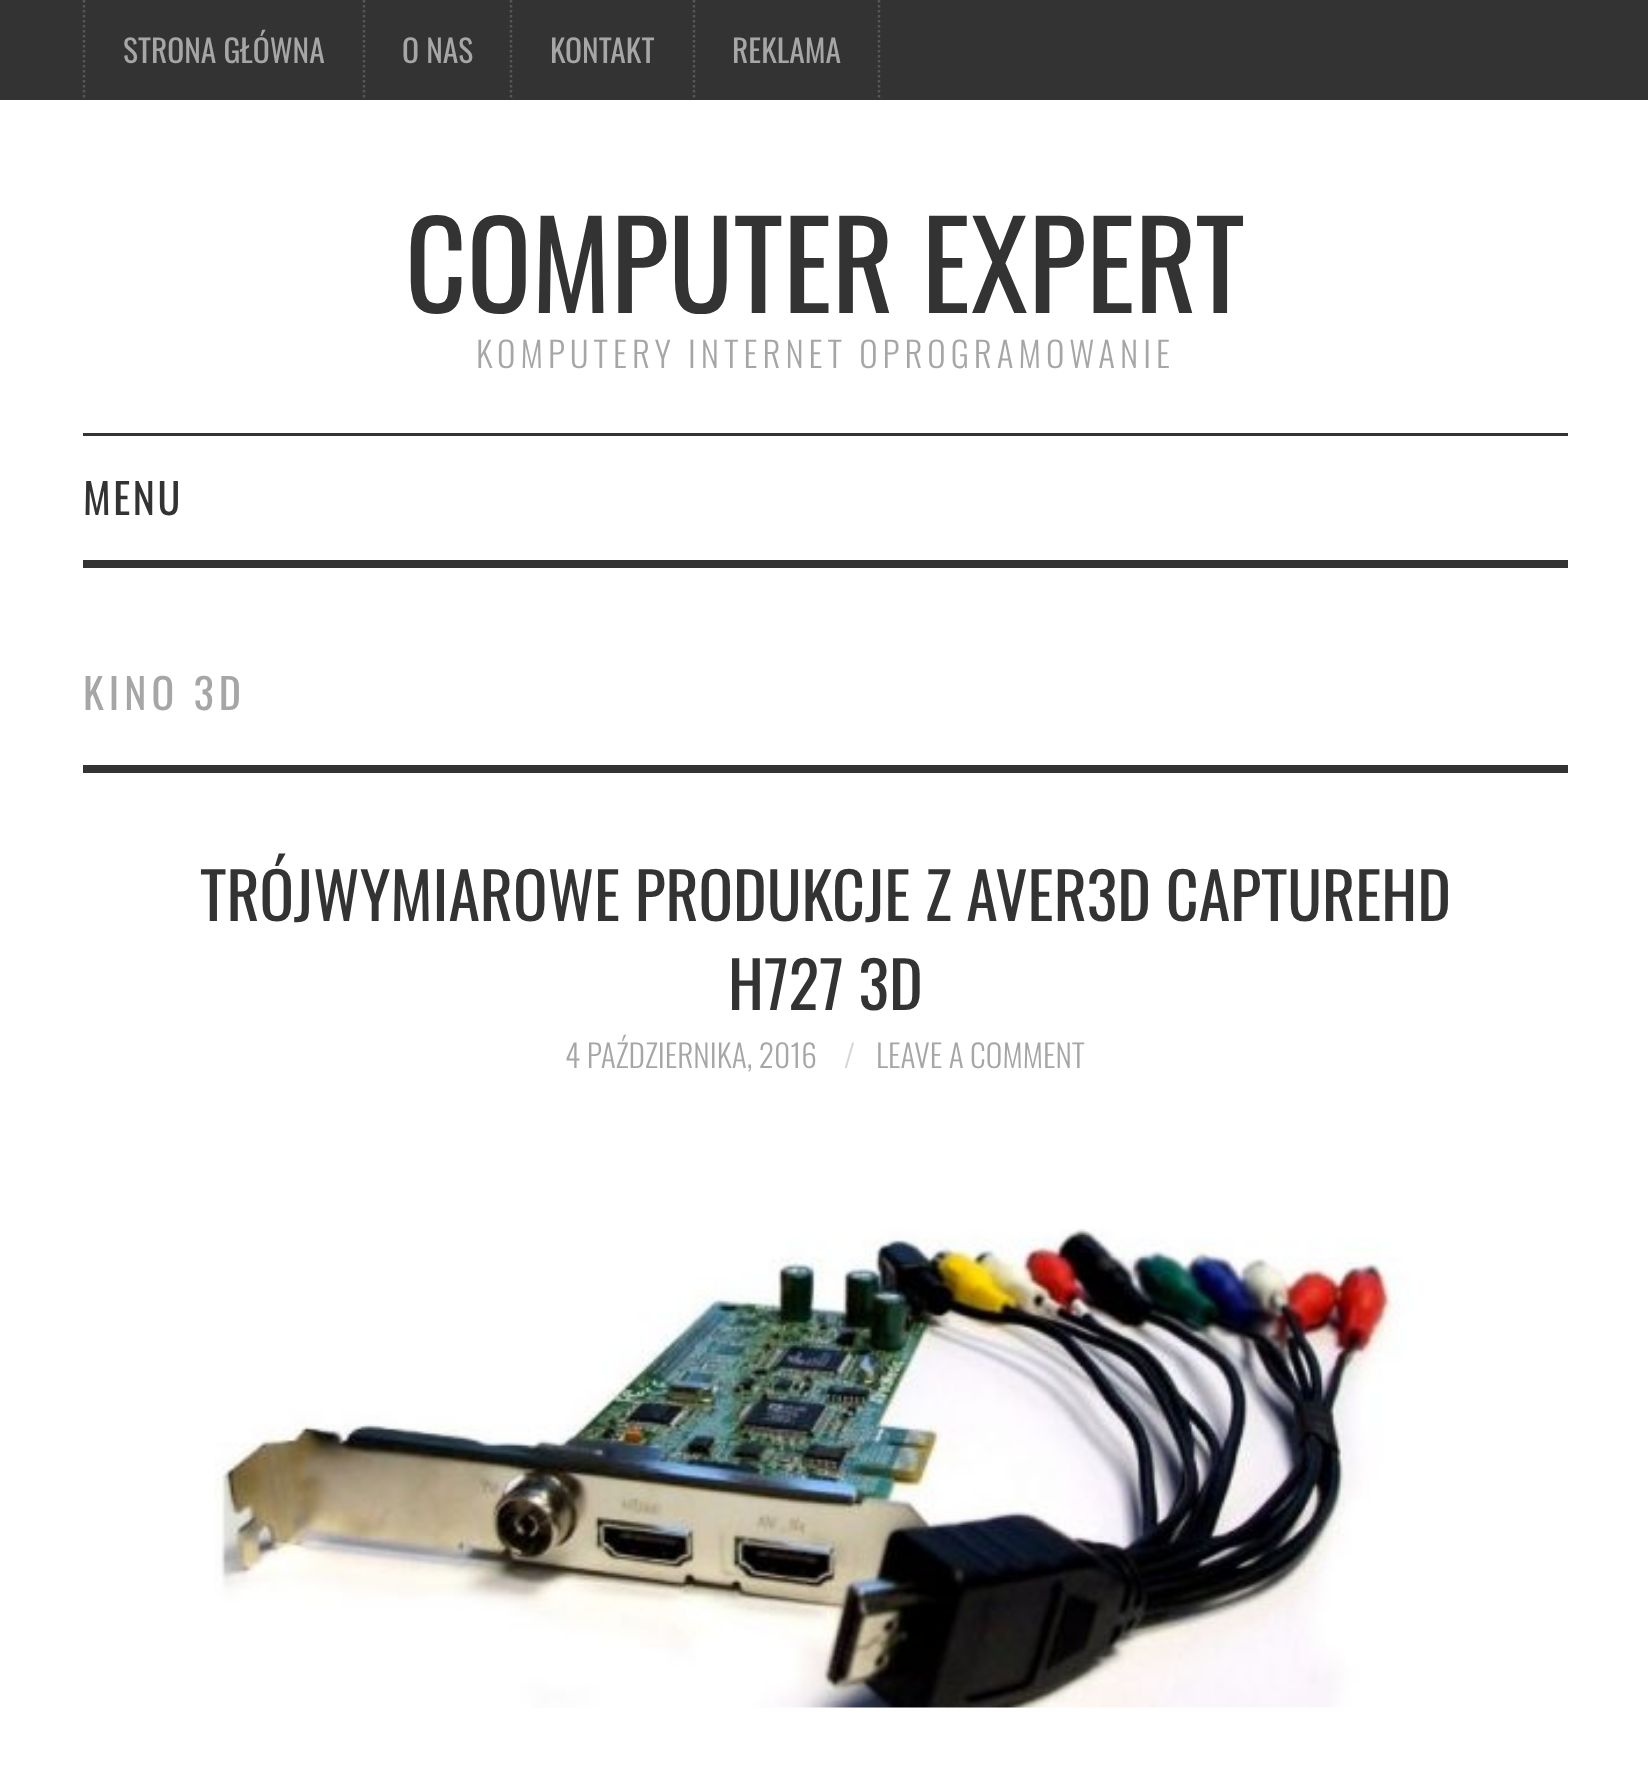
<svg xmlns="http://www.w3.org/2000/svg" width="1648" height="1782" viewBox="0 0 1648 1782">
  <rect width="100%" height="100%" fill="#fff"/>
  <path d="M0 0h1648v100H0z" fill="#333"/>
  <path d="M84 0V100" fill="none" stroke="#565656" stroke-width="2.5" stroke-dasharray="2.5 2.5"/>
  <path d="M364 0V100" fill="none" stroke="#565656" stroke-width="2.5" stroke-dasharray="2.5 2.5"/>
  <path d="M511 0V100" fill="none" stroke="#565656" stroke-width="2.5" stroke-dasharray="2.5 2.5"/>
  <path d="M694 0V100" fill="none" stroke="#565656" stroke-width="2.5" stroke-dasharray="2.5 2.5"/>
  <path d="M879 0V100" fill="none" stroke="#565656" stroke-width="2.5" stroke-dasharray="2.5 2.5"/>
  <path d="M83 433h1485v3H83z" fill="#333"/>
  <path d="M83 560h1485v8H83z" fill="#333"/>
  <path d="M83 765h1485v8H83z" fill="#333"/>
  <image x="214" y="1228" width="1197" height="480" href="img/1.png"/>
  <g font-family="Oswald" font-size="31.5" fill="#a6a6a6">
    <text x="123" y="63">STRONA GŁÓWNA</text>
    <text x="402" y="63">O NAS</text>
    <text x="550" y="63">KONTAKT</text>
    <text x="732" y="63">REKLAMA</text>
  </g>
  <text x="405" y="313" font-family="Oswald" font-size="120" fill="#333">COMPUTER EXPERT</text>
  <text x="476" y="368" font-family="Oswald" font-size="35" font-weight="300" letter-spacing="5" fill="#a6a6a6">KOMPUTERY INTERNET OPROGRAMOWANIE</text>
  <text x="83" y="515" font-family="Oswald" font-size="42" letter-spacing="2.5" fill="#333">MENU</text>
  <text x="83" y="710" font-family="Oswald" font-size="42" letter-spacing="5" fill="#a6a6a6">KINO 3D</text>
  <g font-family="Oswald" font-size="64" fill="#333">
    <text x="200" y="921">TRÓJWYMIAROWE PRODUKCJE Z AVER3D CAPTUREHD</text>
    <text x="728" y="1010">H727 3D</text>
  </g>
  <text x="565" y="1068" font-family="Oswald" font-size="31.5" font-weight="300" fill="#a6a6a6">4 PAŹDZIERNIKA, 2016</text>
  <text x="844" y="1068" font-family="Oswald" font-size="31.5" font-weight="300" fill="#d6d6d6">/</text>
  <text x="876" y="1068" font-family="Oswald" font-size="31.5" font-weight="300" fill="#a6a6a6">LEAVE A COMMENT</text>
</svg>
